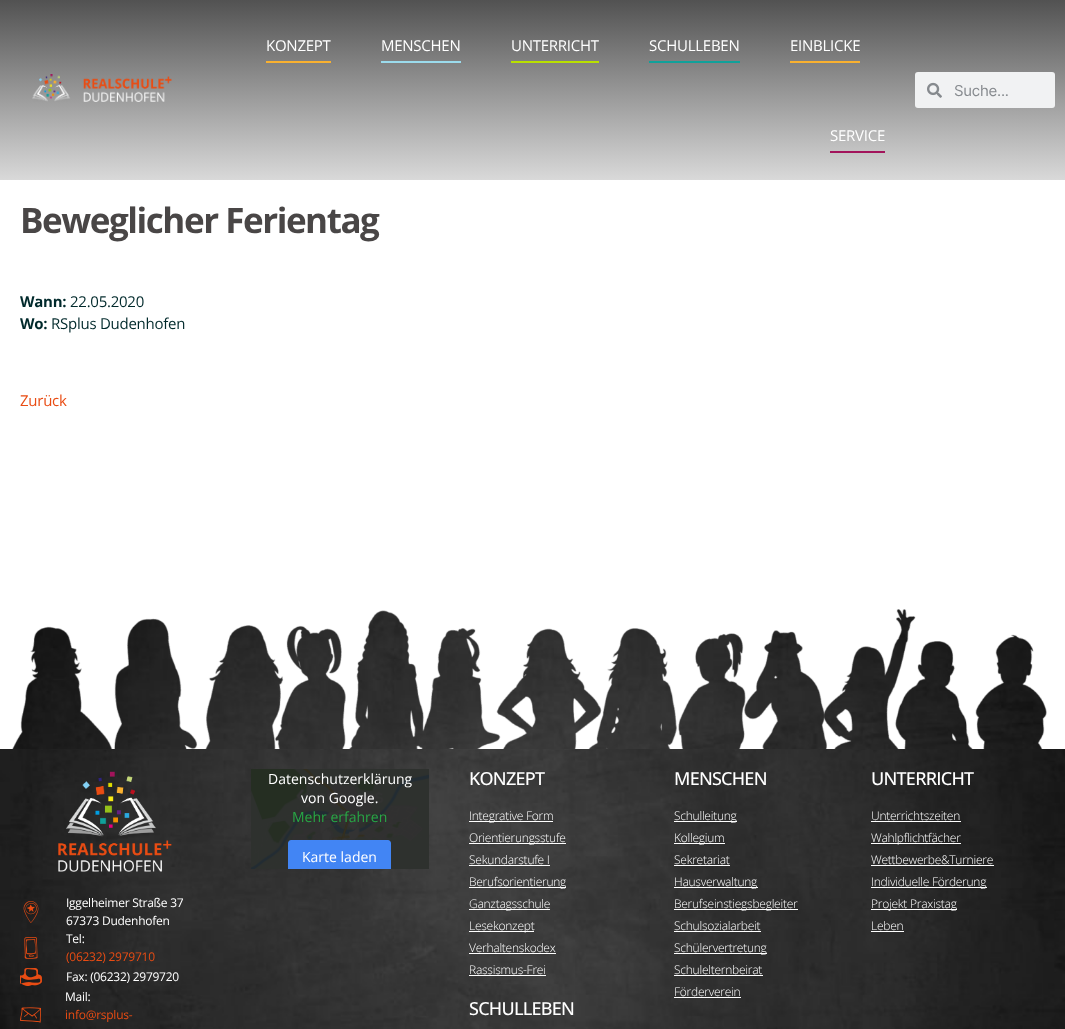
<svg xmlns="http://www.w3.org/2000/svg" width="1065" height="1029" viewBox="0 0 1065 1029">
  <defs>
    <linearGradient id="g1" gradientUnits="userSpaceOnUse" x1="533" y1="0" x2="533" y2="180"><stop offset="0" stop-color="#525252"/><stop offset="1" stop-color="#d9d9d9"/></linearGradient>
  </defs>
  <rect width="100%" height="100%" fill="#fff"/>
  <path d="M0 0h1065v180H0z" fill="url(#g1)"/>
  <image x="32" y="74" width="140" height="28" href="img/1.png"/>
  <path d="M266 61h65v2H266z" fill="#f9b130"/>
  <path d="M381 61h80v2H381z" fill="#9bdbec"/>
  <path d="M511 61h88v2H511z" fill="#b9e000"/>
  <path d="M649 61h91v2H649z" fill="#10a19a"/>
  <path d="M790 61h70v2H790z" fill="#f9b130"/>
  <path d="M830 151h55v2H830z" fill="#a2145b"/>
  <rect x="915" y="72" width="140" height="36" rx="3" fill="#f1f2f3"/>
  <image x="927" y="82" width="15" height="16" href="img/2.png"/>
  <image x="12" y="609" width="1035" height="140" href="img/3.png"/>
  <image x="0" y="605" width="1065" height="144" href="img/4.png"/>
  <image x="0" y="749" width="1065" height="280" href="img/5.png"/>
  <image x="251" y="769" width="178" height="100" href="img/6.png"/>
  <path d="M291 840H388C389.5 840 391 841.5 391 843V869H288V843C288 841.5 289.5 840 291 840Z" fill="#4285f4"/>
  <path d="M469 821h84v1H469z" fill="#fff"/>
  <path d="M469 843h97v1H469z" fill="#fff"/>
  <path d="M469 865h81v1H469z" fill="#fff"/>
  <path d="M469 887h97v1H469z" fill="#fff"/>
  <path d="M469 909h81v1H469z" fill="#fff"/>
  <path d="M469 931h65v1H469z" fill="#fff"/>
  <path d="M469 953h87v1H469z" fill="#fff"/>
  <path d="M469 975h77v1H469z" fill="#fff"/>
  <path d="M674 821h63v1H674z" fill="#fff"/>
  <path d="M674 843h51v1H674z" fill="#fff"/>
  <path d="M674 865h56v1H674z" fill="#fff"/>
  <path d="M674 887h84v1H674z" fill="#fff"/>
  <path d="M674 909h124v1H674z" fill="#fff"/>
  <path d="M674 931h87v1H674z" fill="#fff"/>
  <path d="M674 953h93v1H674z" fill="#fff"/>
  <path d="M674 975h89v1H674z" fill="#fff"/>
  <path d="M674 997h67v1H674z" fill="#fff"/>
  <path d="M871 821h90v1H871z" fill="#fff"/>
  <path d="M871 843h90v1H871z" fill="#fff"/>
  <path d="M871 865h123v1H871z" fill="#fff"/>
  <path d="M871 887h116v1H871z" fill="#fff"/>
  <path d="M871 909h86v1H871z" fill="#fff"/>
  <path d="M871 931h33v1H871z" fill="#fff"/>
  <image x="58" y="771" width="114" height="101" href="img/7.png"/>
  <image x="23" y="901" width="16" height="22" href="img/8.png"/>
  <image x="24" y="937" width="14" height="22" href="img/9.png"/>
  <image x="20" y="968" width="22" height="18" href="img/10.png"/>
  <image x="20" y="1007" width="21" height="16" href="img/11.png"/>
  <g font-family="Open Sans" font-size="15" letter-spacing="-0.25" fill="#fff">
    <text x="266" y="51">KONZEPT</text>
    <text x="381" y="51">MENSCHEN</text>
    <text x="511" y="51">UNTERRICHT</text>
    <text x="649" y="51">SCHULLEBEN</text>
    <text x="790" y="51">EINBLICKE</text>
    <text x="830" y="141">SERVICE</text>
  </g>
  <text x="954" y="96" font-family="Inter" font-size="15" letter-spacing="-0.25" fill="#868a8e">Suche...</text>
  <text x="20" y="233" font-family="Open Sans" font-size="35" font-weight="bold" letter-spacing="-1.45" fill="#494646">Beweglicher Ferientag</text>
  <text x="20" y="307" font-family="Open Sans" font-size="15" font-weight="bold" letter-spacing="-0.25" fill="#00292b">Wann:</text>
  <text x="70" y="307" font-family="Open Sans" font-size="15" letter-spacing="-0.25" fill="#00292b">22.05.2020</text>
  <text x="20" y="329" font-family="Open Sans" font-size="15" font-weight="bold" letter-spacing="-0.25" fill="#00292b">Wo:</text>
  <text x="51" y="329" font-family="Open Sans" font-size="15" letter-spacing="-0.25" fill="#00292b">RSplus Dudenhofen</text>
  <text x="20" y="406" font-family="Open Sans" font-size="15" letter-spacing="-0.25" fill="#e94c13">Zurück</text>
  <g font-family="Open Sans" font-size="14" fill="#fff">
    <text x="268" y="784">Datenschutzerklärung</text>
    <text x="301" y="803">von Google.</text>
  </g>
  <text x="292" y="822" font-family="Open Sans" font-size="14" fill="#28a745">Mehr erfahren</text>
  <text x="302" y="862" font-family="Open Sans" font-size="14" fill="#fff">Karte laden</text>
  <text x="469" y="785" font-family="Open Sans" font-size="18" font-weight="500" letter-spacing="-0.75" fill="#fff">KONZEPT</text>
  <g font-family="Open Sans" font-size="12" font-weight="300" letter-spacing="-0.25" fill="#fff">
    <text x="469" y="820">Integrative Form</text>
    <text x="469" y="842">Orientierungsstufe</text>
    <text x="469" y="864">Sekundarstufe I</text>
    <text x="469" y="886">Berufsorientierung</text>
    <text x="469" y="908">Ganztagsschule</text>
    <text x="469" y="930">Lesekonzept</text>
    <text x="469" y="952">Verhaltenskodex</text>
    <text x="469" y="974">Rassismus-Frei</text>
  </g>
  <g font-family="Open Sans" font-size="18" font-weight="500" letter-spacing="-0.75" fill="#fff">
    <text x="469" y="1015">SCHULLEBEN</text>
    <text x="674" y="785">MENSCHEN</text>
  </g>
  <g font-family="Open Sans" font-size="12" font-weight="300" letter-spacing="-0.25" fill="#fff">
    <text x="674" y="820">Schulleitung</text>
    <text x="674" y="842">Kollegium</text>
    <text x="674" y="864">Sekretariat</text>
    <text x="674" y="886">Hausverwaltung</text>
    <text x="674" y="908">Berufseinstiegsbegleiter</text>
    <text x="674" y="930">Schulsozialarbeit</text>
    <text x="674" y="952">Schülervertretung</text>
    <text x="674" y="974">Schulelternbeirat</text>
    <text x="674" y="996">Förderverein</text>
  </g>
  <text x="871" y="785" font-family="Open Sans" font-size="18" font-weight="500" letter-spacing="-0.75" fill="#fff">UNTERRICHT</text>
  <g font-family="Open Sans" font-size="12" font-weight="300" letter-spacing="-0.25" fill="#fff">
    <text x="871" y="820">Unterrichtszeiten</text>
    <text x="871" y="842">Wahlpflichtfächer</text>
    <text x="871" y="864">Wettbewerbe&amp;Turniere</text>
    <text x="871" y="886">Individuelle Förderung</text>
    <text x="871" y="908">Projekt Praxistag</text>
    <text x="871" y="930">Leben</text>
  </g>
  <g font-family="Open Sans" font-size="12" letter-spacing="-0.25" fill="#fff">
    <text x="66" y="907">Iggelheimer Straße 37</text>
    <text x="66" y="925">67373 Dudenhofen</text>
    <text x="66" y="943">Tel:</text>
  </g>
  <text x="66" y="961" font-family="Open Sans" font-size="12" letter-spacing="-0.25" fill="#e94c13">(06232) 2979710</text>
  <g font-family="Open Sans" font-size="12" letter-spacing="-0.25" fill="#fff">
    <text x="66" y="981">Fax: (06232) 2979720</text>
    <text x="65" y="1001">Mail:</text>
  </g>
  <text x="65" y="1019" font-family="Open Sans" font-size="12" letter-spacing="-0.25" fill="#e94c13">info@rsplus-</text>
</svg>
